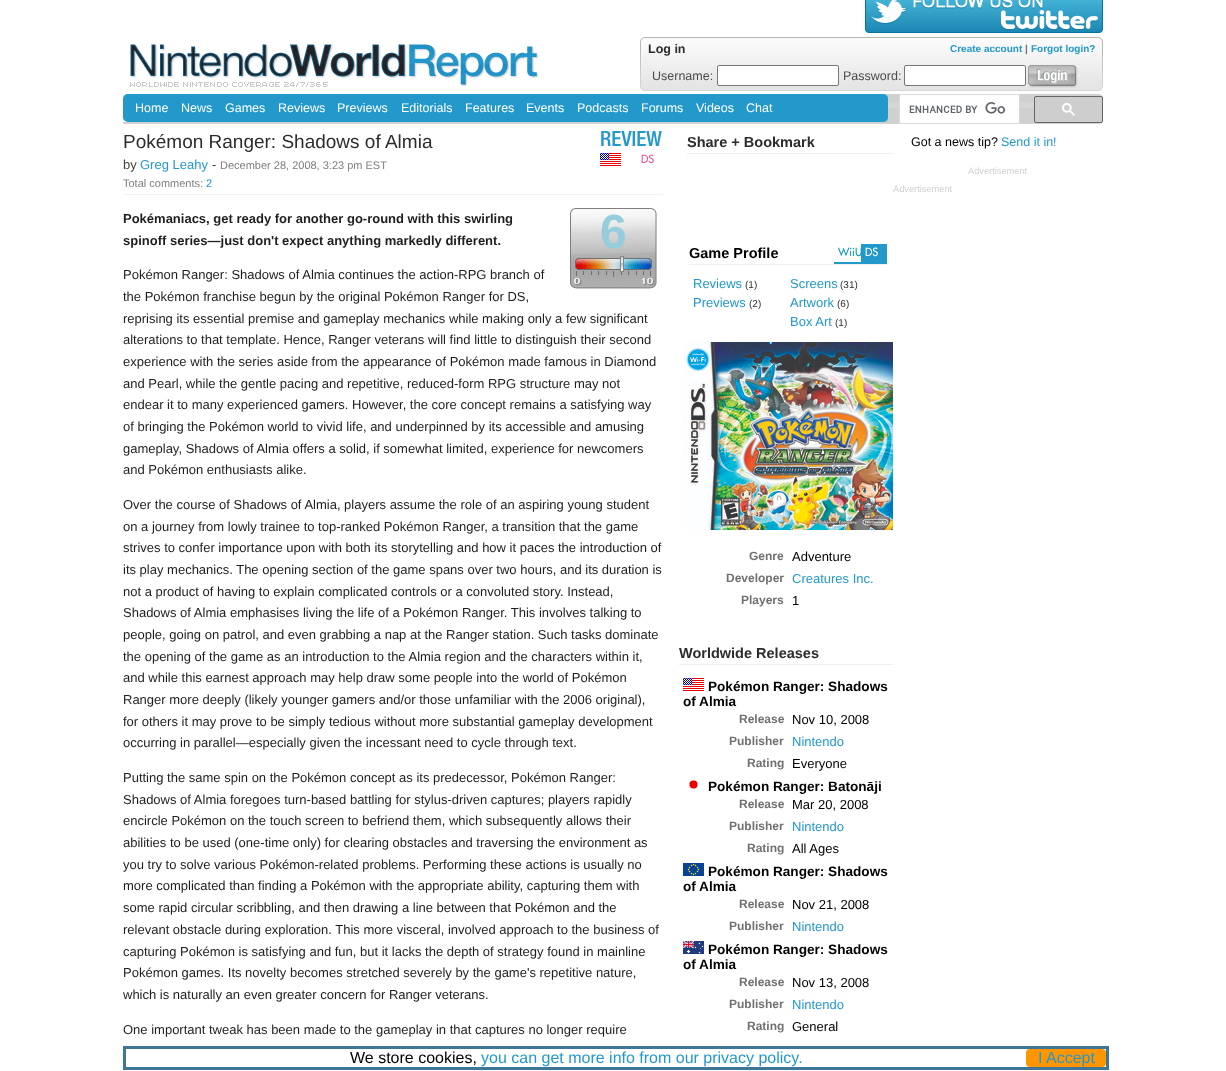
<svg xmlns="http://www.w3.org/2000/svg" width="1226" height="1071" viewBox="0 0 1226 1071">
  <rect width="100%" height="100%" fill="#fff"/>
  <image x="865" y="0" width="238" height="33" href="img/1.png"/>
  <image x="130" y="44" width="409" height="43" href="img/2.png"/>
  <image x="644" y="37" width="455" height="54" href="img/3.png"/>
  <image x="640" y="37" width="4" height="54" href="img/4.png"/>
  <image x="1099" y="37" width="4" height="54" href="img/5.png"/>
  <rect x="717.5" y="65.5" width="121" height="20" rx="1.5" fill="#fff" stroke="#767676"/>
  <rect x="904.5" y="65.5" width="121" height="20" rx="1.5" fill="#fff" stroke="#767676"/>
  <image x="1028" y="65" width="50" height="23" href="img/6.png"/>
  <path d="M123 94h979v30H123z" fill="#d0d0d0"/>
  <path d="M123 94h765v28H123z" fill="#2399cb"/>
  <image x="123" y="118" width="765" height="4" href="img/7.png"/>
  <image x="123" y="94" width="765" height="4" href="img/8.png"/>
  <path d="M888 102h146v6H888z" fill="#d6d6d6"/>
  <image x="1099" y="121" width="4" height="3" href="img/9.png"/>
  <image x="1099" y="94" width="4" height="4" href="img/10.png"/>
  <path d="M899.5 94.5h120v29H899.5z" fill="#fff" stroke="#d9d9d9"/>
  <image x="909" y="102" width="97" height="12" href="img/11.png"/>
  <rect x="1034.5" y="96.5" width="68" height="26" rx="1.5" fill="#cecece" stroke="#666"/>
  <image x="1062" y="103" width="13" height="13" href="img/12.png"/>
  <image x="600" y="153" width="21" height="13" href="img/13.png"/>
  <path d="M123 194h540v1H123z" fill="#f3f3f3"/>
  <image x="570" y="208" width="87" height="81" href="img/14.png"/>
  <image x="620" y="256" width="4" height="16" href="img/15.png"/>
  <path d="M687 153h206v1H687z" fill="#efefef"/>
  <path d="M689 264h198v1H689z" fill="#efefef"/>
  <path d="M834 262h27v2H834z" fill="#2399cb"/>
  <path d="M861 244h26v20H861z" fill="#2399cb"/>
  <image x="683" y="342" width="210" height="188" href="img/16.png"/>
  <path d="M679 664h214v1H679z" fill="#efefef"/>
  <image x="683" y="678" width="21" height="13" href="img/13.png"/>
  <image x="689" y="780" width="9" height="9" href="img/17.png"/>
  <image x="683" y="863" width="21" height="13" href="img/18.png"/>
  <image x="683" y="941" width="21" height="13" href="img/19.png"/>
  <path d="M124.5 1047.5h983v21H124.5z" fill="none" stroke="#3f7695" stroke-width="3"/>
  <rect x="1026" y="1049" width="80" height="18" rx="4" fill="#ff9500"/>
  <text x="648" y="53" font-family="Liberation Sans" font-size="12.5" font-weight="bold" fill="#2c2c2c">Log in</text>
  <text x="950" y="52" font-family="Liberation Sans" font-size="10" font-weight="bold" fill="#2399cb">Create account</text>
  <text x="1025" y="52" font-family="Liberation Sans" font-size="10" font-weight="bold" fill="#707070">|</text>
  <text x="1031" y="52" font-family="Liberation Sans" font-size="10" font-weight="bold" fill="#2399cb">Forgot login?</text>
  <g font-family="Liberation Sans" font-size="12.5" fill="#4c4c4c">
    <text x="652" y="80">Username:</text>
    <text x="843" y="80">Password:</text>
  </g>
  <g font-family="Liberation Sans" font-size="12.5" fill="#fff">
    <text x="135" y="112">Home</text>
    <text x="181" y="112">News</text>
    <text x="225" y="112">Games</text>
    <text x="278" y="112">Reviews</text>
    <text x="337" y="112">Previews</text>
    <text x="401" y="112">Editorials</text>
    <text x="465" y="112">Features</text>
    <text x="526" y="112">Events</text>
    <text x="577" y="112">Podcasts</text>
    <text x="641" y="112">Forums</text>
    <text x="696" y="112">Videos</text>
    <text x="746" y="112">Chat</text>
  </g>
  <text x="123" y="148" font-family="Liberation Sans" font-size="19" fill="#2c2c2c">Pokémon Ranger: Shadows of Almia</text>
  <text x="600" y="146" font-family="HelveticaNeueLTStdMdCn" font-size="21" font-weight="500" fill="#2399cb">REVIEW</text>
  <text x="641" y="163" font-family="Futura" font-size="11" font-weight="500" fill="#f24f8e">DS</text>
  <text x="123" y="169" font-family="Liberation Sans" font-size="13" fill="#3e3e3e">by</text>
  <text x="140" y="169" font-family="Liberation Sans" font-size="13" fill="#2399cb">Greg Leahy</text>
  <text x="212" y="169" font-family="Liberation Sans" font-size="13" fill="#3e3e3e">-</text>
  <g font-family="Liberation Sans" font-size="11" fill="#7e7e7e">
    <text x="220" y="169">December 28, 2008, 3:23 pm EST</text>
    <text x="123" y="187">Total comments:</text>
  </g>
  <text x="206" y="187" font-family="Liberation Sans" font-size="11" fill="#2399cb">2</text>
  <g font-family="Liberation Sans" font-size="13" font-weight="bold" fill="#1e1e1e">
    <text x="123" y="223">Pokémaniacs, get ready for another go-round with this swirling</text>
    <text x="123" y="245">spinoff series—just don't expect anything markedly different.</text>
  </g>
  <text x="600" y="248" font-family="Liberation Sans" font-size="48" font-weight="bold" fill="#95cddd">6</text>
  <g font-family="Liberation Sans" font-size="13" fill="#1e1e1e">
    <text x="123" y="279">Pokémon Ranger: Shadows of Almia continues the action-RPG branch of</text>
    <text x="123" y="301">the Pokémon franchise begun by the original Pokémon Ranger for DS,</text>
    <text x="123" y="323">reprising its essential premise and gameplay mechanics while making only a few significant</text>
    <text x="123" y="344">alterations to that template. Hence, Ranger veterans will find little to distinguish their second</text>
    <text x="123" y="366">experience with the series aside from the appearance of Pokémon made famous in Diamond</text>
    <text x="123" y="388">and Pearl, while the gentle pacing and repetitive, reduced-form RPG structure may not</text>
    <text x="123" y="409">endear it to many experienced gamers. However, the core concept remains a satisfying way</text>
    <text x="123" y="431">of bringing the Pokémon world to vivid life, and underpinned by its accessible and amusing</text>
    <text x="123" y="453">gameplay, Shadows of Almia offers a solid, if somewhat limited, experience for newcomers</text>
    <text x="123" y="474">and Pokémon enthusiasts alike.</text>
    <text x="123" y="509">Over the course of Shadows of Almia, players assume the role of an aspiring young student</text>
    <text x="123" y="531">on a journey from lowly trainee to top-ranked Pokémon Ranger, a transition that the game</text>
    <text x="123" y="552">strives to confer importance upon with both its storytelling and how it paces the introduction of</text>
    <text x="123" y="574">its play mechanics. The opening section of the game spans over two hours, and its duration is</text>
    <text x="123" y="596">not a product of having to explain complicated controls or a convoluted story. Instead,</text>
    <text x="123" y="617">Shadows of Almia emphasises living the life of a Pokémon Ranger. This involves talking to</text>
    <text x="123" y="639">people, going on patrol, and even grabbing a nap at the Ranger station. Such tasks dominate</text>
    <text x="123" y="661">the opening of the game as an introduction to the Almia region and the characters within it,</text>
    <text x="123" y="682">and while this earnest approach may help draw some people into the world of Pokémon</text>
    <text x="123" y="704">Ranger more deeply (likely younger gamers and/or those unfamiliar with the 2006 original),</text>
    <text x="123" y="726">for others it may prove to be simply tedious without more substantial gameplay development</text>
    <text x="123" y="747">occurring in parallel—especially given the incessant need to cycle through text.</text>
    <text x="123" y="782">Putting the same spin on the Pokémon concept as its predecessor, Pokémon Ranger:</text>
    <text x="123" y="804">Shadows of Almia foregoes turn-based battling for stylus-driven captures; players rapidly</text>
    <text x="123" y="825">encircle Pokémon on the touch screen to befriend them, which subsequently allows their</text>
    <text x="123" y="847">abilities to be used (one-time only) for clearing obstacles and traversing the environment as</text>
    <text x="123" y="869">you try to solve various Pokémon-related problems. Performing these actions is usually no</text>
    <text x="123" y="890">more complicated than finding a Pokémon with the appropriate ability, capturing them with</text>
    <text x="123" y="912">some rapid circular scribbling, and then drawing a line between that Pokémon and the</text>
    <text x="123" y="934">relevant obstacle during exploration. This more visceral, involved approach to the business of</text>
    <text x="123" y="956">capturing Pokémon is satisfying and fun, but it lacks the depth of strategy found in mainline</text>
    <text x="123" y="977">Pokémon games. Its novelty becomes stretched severely by the game's repetitive nature,</text>
    <text x="123" y="999">which is naturally an even greater concern for Ranger veterans.</text>
    <text x="123" y="1034">One important tweak has been made to the gameplay in that captures no longer require</text>
  </g>
  <text x="687" y="147" font-family="Liberation Sans" font-size="14.5" font-weight="bold" fill="#2c2c2c">Share + Bookmark</text>
  <text x="689" y="258" font-family="Liberation Sans" font-size="14.5" font-weight="bold" fill="#000">Game Profile</text>
  <text x="838" y="256" font-family="Futura" font-size="11" font-weight="500" fill="#0096c8">WiiU</text>
  <text x="865" y="256" font-family="Futura" font-size="11" font-weight="500" fill="#fff">DS</text>
  <text x="693" y="288" font-family="Liberation Sans" font-size="13" fill="#2399cb">Reviews</text>
  <text x="745" y="288" font-family="Liberation Sans" font-size="10" fill="#2c2c2c">(1)</text>
  <text x="693" y="307" font-family="Liberation Sans" font-size="13" fill="#2399cb">Previews</text>
  <text x="749" y="307" font-family="Liberation Sans" font-size="10" fill="#2c2c2c">(2)</text>
  <text x="790" y="288" font-family="Liberation Sans" font-size="13" fill="#2399cb">Screens</text>
  <text x="840" y="288" font-family="Liberation Sans" font-size="10" fill="#2c2c2c">(31)</text>
  <text x="790" y="307" font-family="Liberation Sans" font-size="13" fill="#2399cb">Artwork</text>
  <text x="837" y="307" font-family="Liberation Sans" font-size="10" fill="#2c2c2c">(6)</text>
  <text x="790" y="326" font-family="Liberation Sans" font-size="13" fill="#2399cb">Box Art</text>
  <text x="835" y="326" font-family="Liberation Sans" font-size="10" fill="#2c2c2c">(1)</text>
  <text x="749" y="560" font-family="Liberation Sans" font-size="12" font-weight="bold" fill="#707070">Genre</text>
  <text x="792" y="561" font-family="Liberation Sans" font-size="13" fill="#000">Adventure</text>
  <text x="726" y="582" font-family="Liberation Sans" font-size="12" font-weight="bold" fill="#707070">Developer</text>
  <text x="792" y="583" font-family="Liberation Sans" font-size="13" fill="#2399cb">Creatures Inc.</text>
  <text x="741" y="604" font-family="Liberation Sans" font-size="12" font-weight="bold" fill="#707070">Players</text>
  <text x="792" y="605" font-family="Liberation Sans" font-size="13" fill="#000">1</text>
  <text x="679" y="658" font-family="Liberation Sans" font-size="14.5" font-weight="bold" fill="#2c2c2c">Worldwide Releases</text>
  <g font-family="Liberation Sans" font-size="13.6" font-weight="bold" fill="#000">
    <text x="708" y="691">Pokémon Ranger: Shadows</text>
    <text x="683" y="706">of Almia</text>
  </g>
  <text x="739" y="723" font-family="Liberation Sans" font-size="12" font-weight="bold" fill="#707070">Release</text>
  <text x="792" y="724" font-family="Liberation Sans" font-size="13" fill="#000">Nov 10, 2008</text>
  <text x="729" y="745" font-family="Liberation Sans" font-size="12" font-weight="bold" fill="#707070">Publisher</text>
  <text x="792" y="746" font-family="Liberation Sans" font-size="13" fill="#2399cb">Nintendo</text>
  <text x="747" y="767" font-family="Liberation Sans" font-size="12" font-weight="bold" fill="#707070">Rating</text>
  <text x="792" y="768" font-family="Liberation Sans" font-size="13" fill="#000">Everyone</text>
  <text x="708" y="791" font-family="Liberation Sans" font-size="13.6" font-weight="bold" fill="#000">Pokémon Ranger: Batonāji</text>
  <text x="739" y="808" font-family="Liberation Sans" font-size="12" font-weight="bold" fill="#707070">Release</text>
  <text x="792" y="809" font-family="Liberation Sans" font-size="13" fill="#000">Mar 20, 2008</text>
  <text x="729" y="830" font-family="Liberation Sans" font-size="12" font-weight="bold" fill="#707070">Publisher</text>
  <text x="792" y="831" font-family="Liberation Sans" font-size="13" fill="#2399cb">Nintendo</text>
  <text x="747" y="852" font-family="Liberation Sans" font-size="12" font-weight="bold" fill="#707070">Rating</text>
  <text x="792" y="853" font-family="Liberation Sans" font-size="13" fill="#000">All Ages</text>
  <g font-family="Liberation Sans" font-size="13.6" font-weight="bold" fill="#000">
    <text x="708" y="876">Pokémon Ranger: Shadows</text>
    <text x="683" y="891">of Almia</text>
  </g>
  <text x="739" y="908" font-family="Liberation Sans" font-size="12" font-weight="bold" fill="#707070">Release</text>
  <text x="792" y="909" font-family="Liberation Sans" font-size="13" fill="#000">Nov 21, 2008</text>
  <text x="729" y="930" font-family="Liberation Sans" font-size="12" font-weight="bold" fill="#707070">Publisher</text>
  <text x="792" y="931" font-family="Liberation Sans" font-size="13" fill="#2399cb">Nintendo</text>
  <g font-family="Liberation Sans" font-size="13.6" font-weight="bold" fill="#000">
    <text x="708" y="954">Pokémon Ranger: Shadows</text>
    <text x="683" y="969">of Almia</text>
  </g>
  <text x="739" y="986" font-family="Liberation Sans" font-size="12" font-weight="bold" fill="#707070">Release</text>
  <text x="792" y="987" font-family="Liberation Sans" font-size="13" fill="#000">Nov 13, 2008</text>
  <text x="729" y="1008" font-family="Liberation Sans" font-size="12" font-weight="bold" fill="#707070">Publisher</text>
  <text x="792" y="1009" font-family="Liberation Sans" font-size="13" fill="#2399cb">Nintendo</text>
  <text x="747" y="1030" font-family="Liberation Sans" font-size="12" font-weight="bold" fill="#707070">Rating</text>
  <text x="792" y="1031" font-family="Liberation Sans" font-size="13" fill="#000">General</text>
  <text x="911" y="146" font-family="Liberation Sans" font-size="12.5" fill="#000">Got a news tip?</text>
  <text x="1001" y="146" font-family="Liberation Sans" font-size="12.5" fill="#2399cb">Send it in!</text>
  <g font-family="Liberation Sans" font-size="9.25" fill="#d0d0d0">
    <text x="968" y="174">Advertisement</text>
    <text x="893" y="192">Advertisement</text>
  </g>
  <text x="350" y="1063" font-family="Liberation Sans" font-size="16" fill="#000">We store cookies,</text>
  <g font-family="Liberation Sans" font-size="16" fill="#2399cb">
    <text x="481" y="1063">you can get more info from our privacy policy.</text>
    <text x="1038" y="1063">I Accept</text>
  </g>
</svg>
